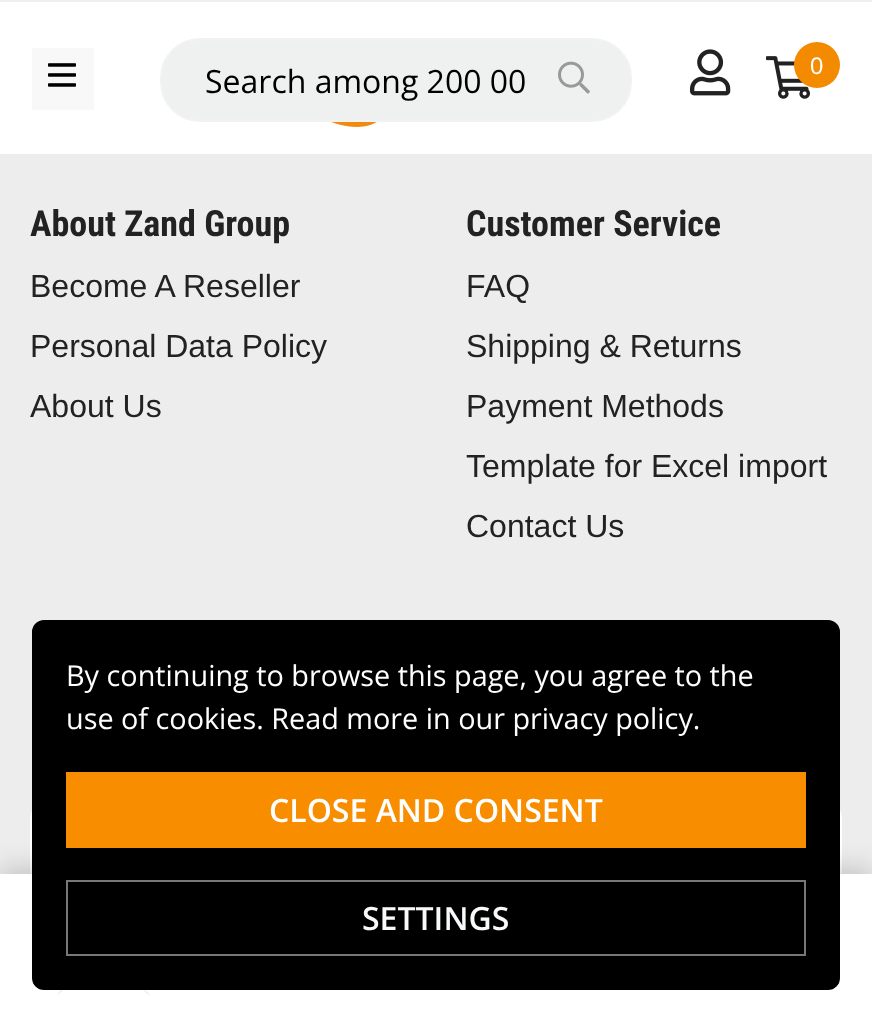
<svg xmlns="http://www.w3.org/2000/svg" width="872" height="1021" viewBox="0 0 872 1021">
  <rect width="100%" height="100%" fill="#ededed"/>
  <path d="M0 2h872v152H0z" fill="#fff"/>
  <path d="M0 0h872v2H0z" fill="#eff0f0"/>
  <path d="M32 48h62v62H32z" fill="#f8f8f8"/>
  <image x="48" y="63" width="28" height="24" href="img/1.png"/>
  <image x="690" y="49" width="41" height="47" href="img/2.png"/>
  <image x="766" y="56" width="44" height="43" href="img/3.png"/>
  <circle cx="817" cy="65" r="23" fill="#f38a00"/>
  <image x="331" y="122" width="46" height="5" href="img/4.png"/>
  <rect x="161" y="39" width="470" height="82" rx="39" fill="#eff0f0" stroke="#f2f2f2" stroke-width="2"/>
  <image x="558" y="61" width="32" height="33" href="img/5.png"/>
  <rect x="30" y="802" width="812" height="92" rx="16" fill="#fff"/>
  <path d="M0 870h872v148H0z" fill="#00000033" filter="blur(14px)"/>
  <path d="M0 874h872v147H0z" fill="#fff"/>
  <rect x="33" y="621" width="806" height="368" rx="11" fill="#000" stroke="#000" stroke-width="2"/>
  <path d="M66 772h740v76H66z" fill="#f88d00"/>
  <path d="M67 881h738v74H67z" fill="none" stroke="#787878" stroke-width="2"/>
  <image x="57" y="990" width="93" height="5" href="img/6.png"/>
  <text x="810" y="74" font-family="Liberation Sans" font-size="24" fill="#fff">0</text>
  <text x="205" y="93" font-family="Open Sans" font-size="32" fill="#000">Search among 200 00</text>
  <text x="30" y="236" font-family="Roboto Condensed" font-size="36" font-weight="bold" fill="#222">About Zand Group</text>
  <g font-family="Liberation Sans" font-size="32" fill="#222">
    <text x="30" y="297">Become A Reseller</text>
    <text x="30" y="357">Personal Data Policy</text>
    <text x="30" y="417">About Us</text>
  </g>
  <text x="466" y="236" font-family="Roboto Condensed" font-size="36" font-weight="bold" fill="#222">Customer Service</text>
  <g font-family="Liberation Sans" font-size="32" fill="#222">
    <text x="466" y="297">FAQ</text>
    <text x="466" y="357">Shipping &amp; Returns</text>
    <text x="466" y="417">Payment Methods</text>
    <text x="466" y="477">Template for Excel import</text>
    <text x="466" y="537">Contact Us</text>
  </g>
  <g font-family="Open Sans" font-size="28.8" fill="#fff">
    <text x="66" y="686">By continuing to browse this page, you agree to the</text>
    <text x="66" y="729">use of cookies. Read more in our privacy policy.</text>
  </g>
  <text x="269" y="822" font-family="Open Sans" font-size="32" font-weight="600" fill="#fff">CLOSE AND CONSENT</text>
  <text x="362" y="930" font-family="Open Sans" font-size="32" font-weight="600" fill="#f8f9fa">SETTINGS</text>
</svg>
